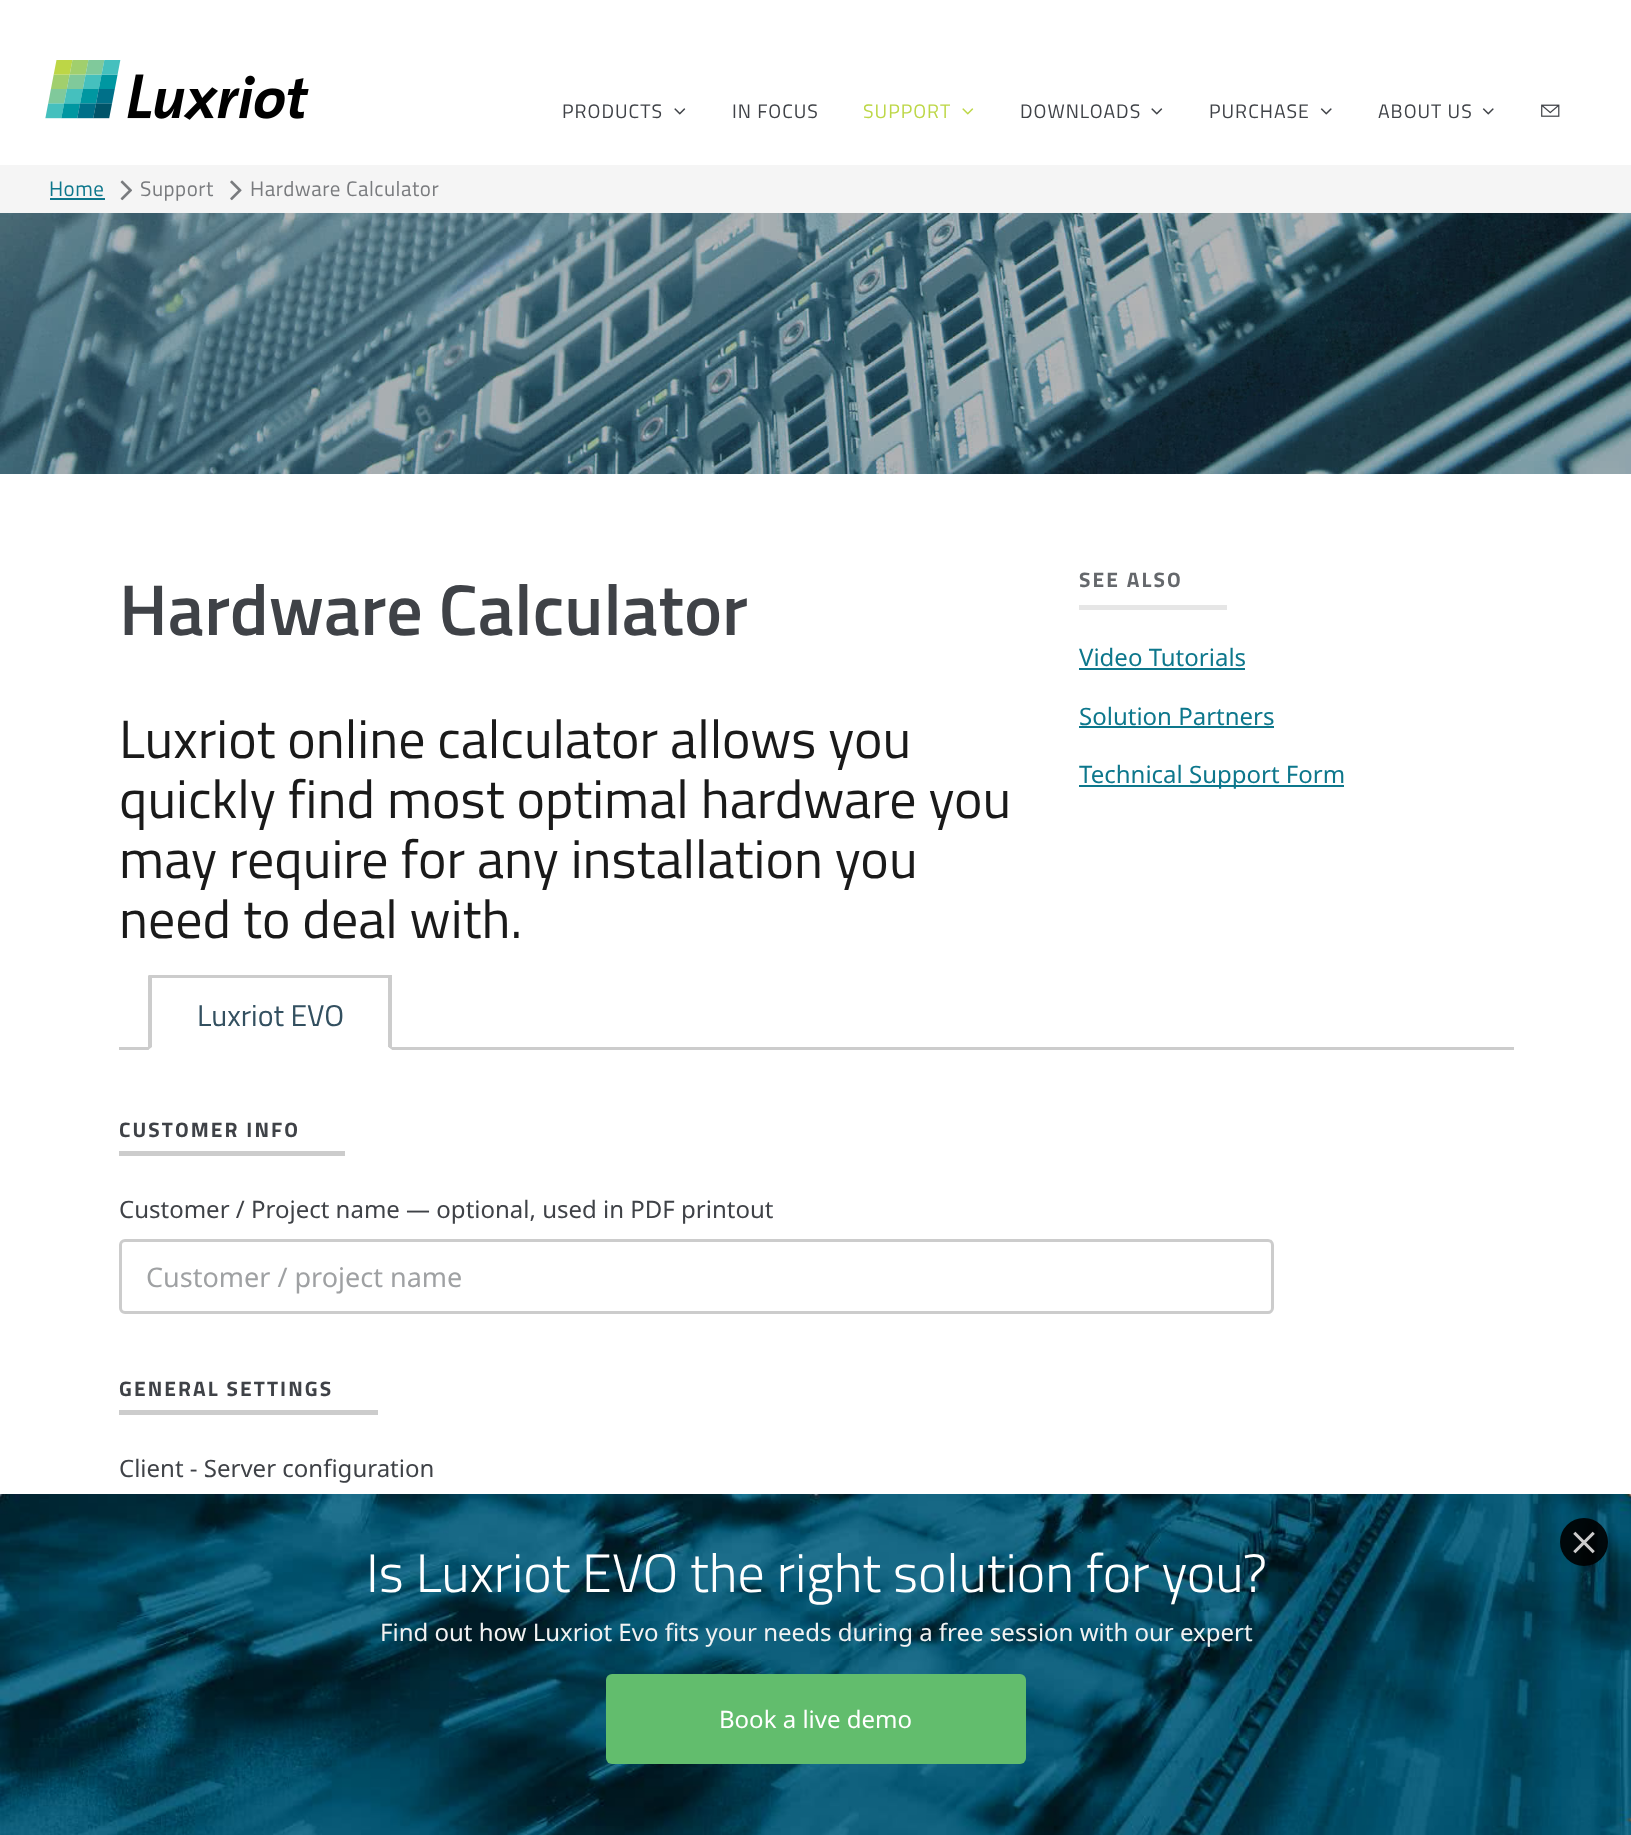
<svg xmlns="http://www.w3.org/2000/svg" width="1631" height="1835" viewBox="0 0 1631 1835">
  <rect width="100%" height="100%" fill="#fff"/>
  <image x="45" y="60" width="264" height="60" href="img/1.png"/>
  <image x="674" y="108" width="12" height="7" href="img/2.png"/>
  <image x="962" y="108" width="12" height="7" href="img/3.png"/>
  <image x="1151" y="108" width="12" height="7" href="img/2.png"/>
  <image x="1320" y="108" width="12" height="7" href="img/4.png"/>
  <image x="1482" y="108" width="12" height="7" href="img/4.png"/>
  <image x="1541" y="104" width="19" height="13" href="img/5.png"/>
  <path d="M0 165h1631v48H0z" fill="#f5f5f5"/>
  <path d="M50 198h55v2H50z" fill="#0d778c"/>
  <image x="120" y="180" width="12" height="21" href="img/6.png"/>
  <image x="230" y="180" width="12" height="21" href="img/7.png"/>
  <image x="0" y="213" width="1631" height="261" href="img/8.png"/>
  <path d="M1079 605h148v5H1079z" fill="#e6e6e6"/>
  <path d="M1079 668h166v2H1079z" fill="#0d778c"/>
  <path d="M1079 726h195v2H1079z" fill="#0d778c"/>
  <path d="M1079 785h265v2H1079z" fill="#0d778c"/>
  <path d="M119 1047h1395v3H119z" fill="#ccc"/>
  <path d="M149 1047h243v3H149z" fill="#fff"/>
  <path d="M149 975h243v3H149z" fill="#ccc"/>
  <path d="M392 975V1050L388 1047V978Z" fill="#ccc"/>
  <path d="M392 1050H148L152 1047H388Z" fill="#fff"/>
  <path d="M148 1050V975L152 978V1047Z" fill="#ccc"/>
  <path d="M119 1151h226v5H119z" fill="#ccc"/>
  <rect x="120.5" y="1240.5" width="1152" height="72" rx="4.5" fill="none" stroke="#ccc" stroke-width="3"/>
  <path d="M119 1410h259v5H119z" fill="#ccc"/>
  <image x="0" y="1494" width="1631" height="341" href="img/9.png"/>
  <circle cx="1584" cy="1542" r="24" fill="#000000e6"/>
  <image x="1573" y="1531" width="22" height="23" href="img/10.png"/>
  <rect x="606" y="1674" width="420" height="90" rx="6" fill="#62bd6d"/>
  <g font-family="Titillium Web" font-size="19.5" letter-spacing="1" fill="#3f4247">
    <text x="562" y="118">PRODUCTS</text>
    <text x="732" y="118">IN FOCUS</text>
  </g>
  <text x="863" y="118" font-family="Titillium Web" font-size="19.5" letter-spacing="1" fill="#bdd747">SUPPORT</text>
  <g font-family="Titillium Web" font-size="19.5" letter-spacing="1" fill="#3f4247">
    <text x="1020" y="118">DOWNLOADS</text>
    <text x="1209" y="118">PURCHASE</text>
    <text x="1378" y="118">ABOUT US</text>
  </g>
  <text x="49" y="196" font-family="Titillium Web" font-size="21" letter-spacing="0.5" fill="#0d778c">Home</text>
  <g font-family="Titillium Web" font-size="21" letter-spacing="0.5" fill="#797b7e">
    <text x="140" y="196">Support</text>
    <text x="250" y="196">Hardware Calculator</text>
  </g>
  <text x="119" y="635" font-family="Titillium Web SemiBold" font-size="72" font-weight="600" fill="#3f4247">Hardware Calculator</text>
  <g font-family="Titillium Web" font-size="54" fill="#1a1a1a">
    <text x="119" y="758">Luxriot online calculator allows you</text>
    <text x="119" y="818">quickly find most optimal hardware you</text>
    <text x="119" y="878">may require for any installation you</text>
    <text x="119" y="938">need to deal with.</text>
  </g>
  <text x="1079" y="587" font-family="Titillium Web" font-size="21" font-weight="bold" letter-spacing="2.1" fill="#65686c">SEE ALSO</text>
  <g font-family="Noto Sans" font-size="24" fill="#0d778c">
    <text x="1079" y="666">Video Tutorials</text>
    <text x="1079" y="725">Solution Partners</text>
    <text x="1079" y="783">Technical Support Form</text>
  </g>
  <text x="197" y="1026" font-family="Titillium Web" font-size="30" fill="#335060">Luxriot EVO</text>
  <text x="119" y="1137" font-family="Titillium Web" font-size="21" font-weight="bold" letter-spacing="2.1" fill="#3f4247">CUSTOMER INFO</text>
  <text x="119" y="1218" font-family="Noto Sans" font-size="24" fill="#3f4247">Customer / Project name — optional, used in PDF printout</text>
  <text x="146" y="1287" font-family="Noto Sans" font-size="27" fill="#9fa1a3">Customer / project name</text>
  <text x="119" y="1396" font-family="Titillium Web" font-size="21" font-weight="bold" letter-spacing="2.1" fill="#3f4247">GENERAL SETTINGS</text>
  <text x="119" y="1477" font-family="Noto Sans" font-size="24" fill="#3f4247">Client - Server configuration</text>
  <text x="366" y="1592" font-family="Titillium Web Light" font-size="54" font-weight="300" fill="#fff">Is Luxriot EVO the right solution for you?</text>
  <text x="380" y="1641" font-family="Noto Sans" font-size="24" fill="#f2f2f2">Find out how Luxriot Evo fits your needs during a free session with our expert</text>
  <text x="719" y="1728" font-family="Noto Sans" font-size="24" fill="#fff">Book a live demo</text>
</svg>
